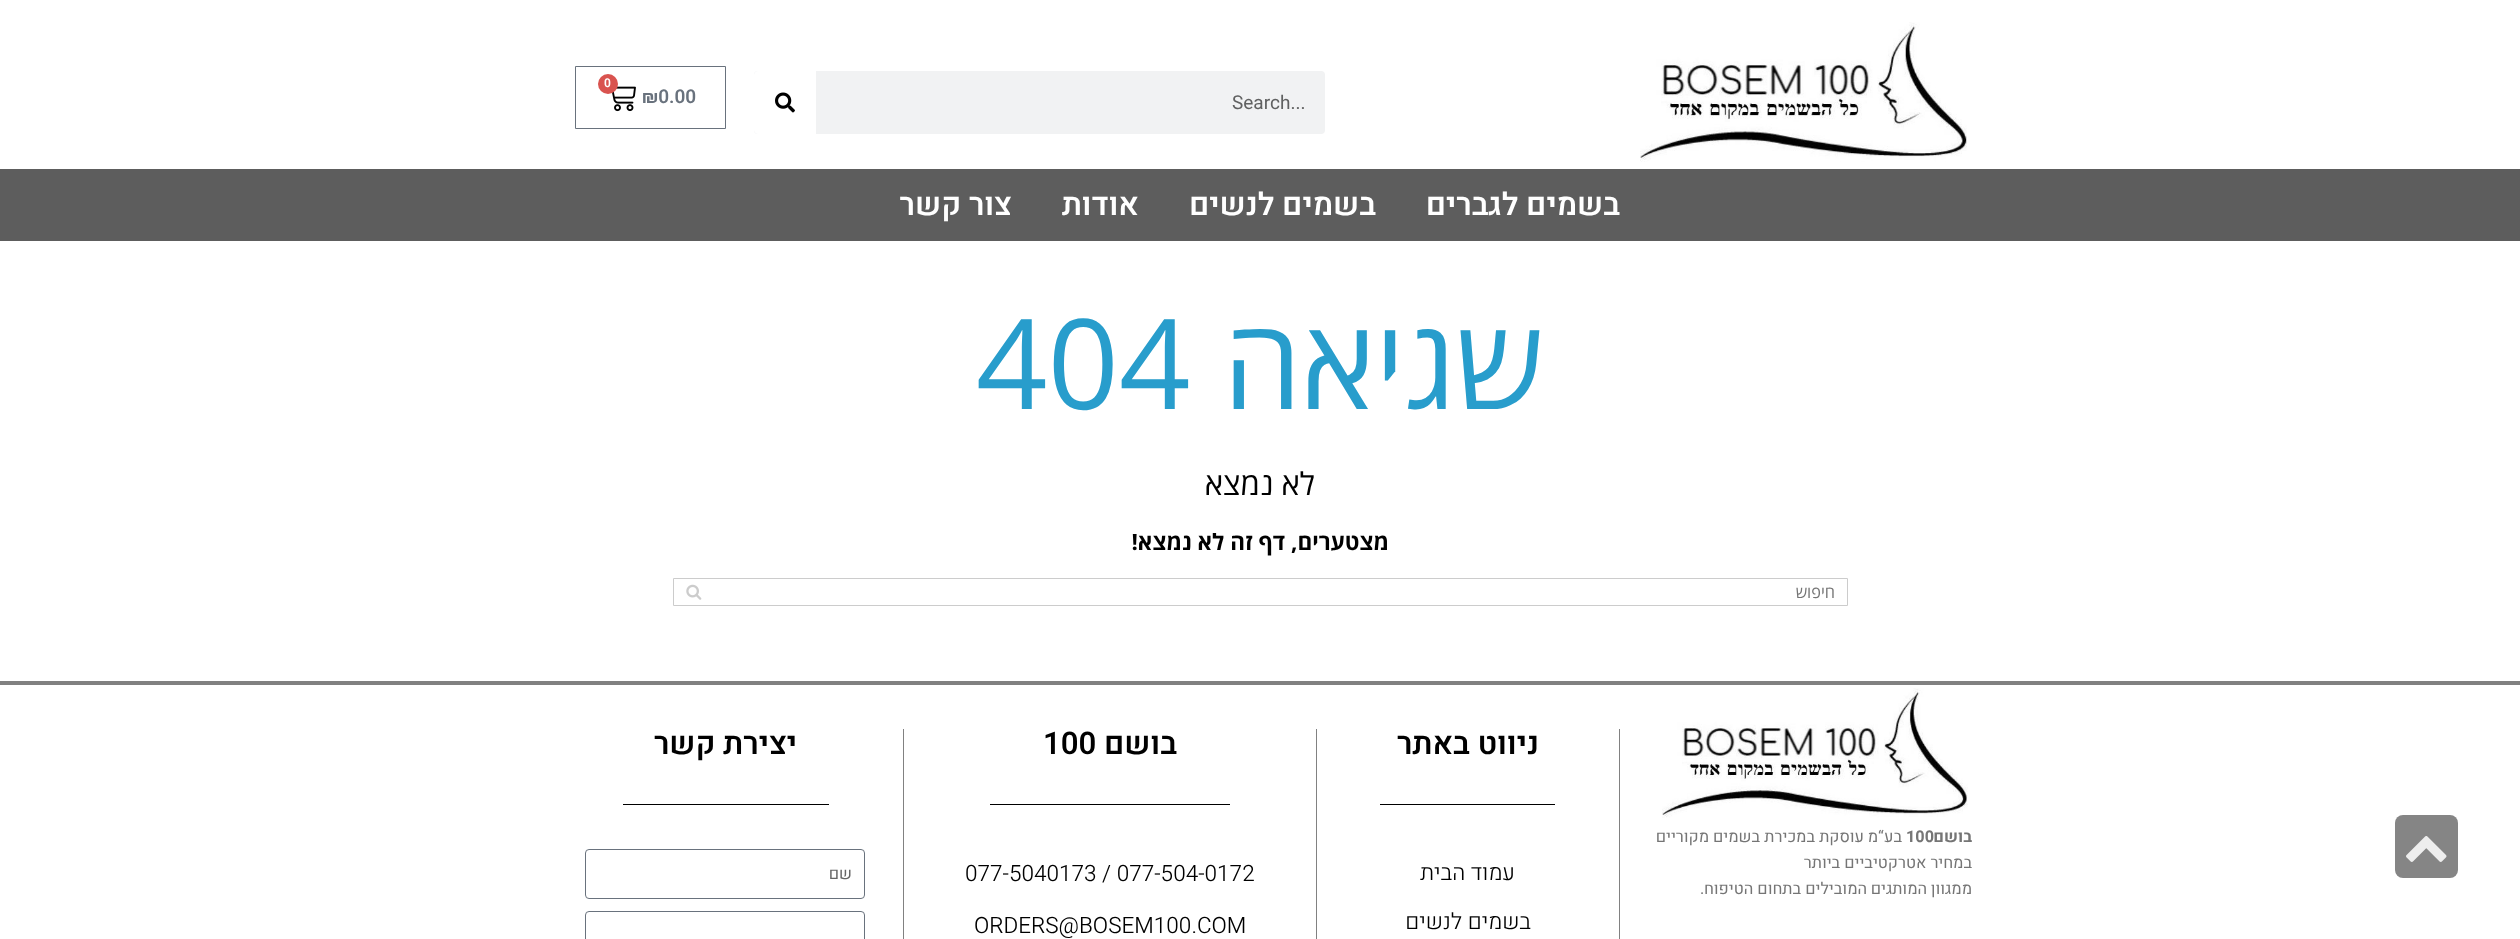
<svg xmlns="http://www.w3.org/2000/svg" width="2520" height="939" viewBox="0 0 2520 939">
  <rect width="100%" height="100%" fill="#fff"/>
  <rect x="2395" y="815" width="63" height="63" rx="8" fill="#858585"/>
  <image x="2406" y="836" width="41" height="26" href="img/1.png"/>
  <image x="1640" y="22" width="327" height="140" href="img/2.png"/>
  <rect x="754" y="71" width="571" height="63" rx="4" fill="#f1f2f3"/>
  <path d="M758 71H816V134H758C756 134 754 132 754 130V75C754 73 756 71 758 71Z" fill="#fff"/>
  <image x="775" y="92" width="20" height="21" href="img/3.png"/>
  <path d="M575.5 66.5h150v62H575.5z" fill="none" stroke="#69727d"/>
  <image x="612" y="86" width="24" height="26" href="img/4.png"/>
  <circle cx="608" cy="84" r="10" fill="#d9534f"/>
  <path d="M0 169h2520v72H0z" fill="#5d5d5d"/>
  <path d="M673.5 578.5h1174v27H673.5z" fill="none" stroke="#ccc"/>
  <image x="686" y="584" width="16" height="16" href="img/5.png"/>
  <path d="M0 681h2520v4H0z" fill="#818181"/>
  <image x="1662" y="688" width="306" height="130" href="img/6.png"/>
  <path d="M1619 729h1v210H1619z" fill="#818181"/>
  <path d="M1316 729h1v210H1316z" fill="#818181"/>
  <path d="M1380 804h175v1H1380z" fill="#000"/>
  <path d="M990 804h240v1H990z" fill="#000"/>
  <path d="M903 729h1v210H903z" fill="#818181"/>
  <path d="M623 804h206v1H623z" fill="#000"/>
  <rect x="585.5" y="849.5" width="279" height="49" rx="3.5" fill="none" stroke="#69727d"/>
  <rect x="585.5" y="911.5" width="279" height="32" rx="3.5" fill="none" stroke="#69727d"/>
  <text x="1232" y="109" font-family="Heebo" font-size="19" fill="#606161">Search...</text>
  <text x="604" y="87" font-family="Roboto" font-size="12" font-weight="600" fill="#fff">0</text>
  <text x="642" y="103" font-family="Roboto" font-size="19" font-weight="600" fill="#69727d">₪0.00</text>
  <g font-family="Heebo" font-size="31.25" font-weight="600" direction="rtl" fill="#fff">
    <text x="1620" y="215">בשמים לגברים</text>
    <text x="1376" y="215">בשמים לנשים</text>
    <text x="1139" y="215">אודות</text>
    <text x="1012" y="215">צור קשר</text>
  </g>
  <text x="1544" y="409" font-family="Open Sans" font-size="125" direction="rtl" fill="#289dcc">שגיאה</text>
  <text x="976" y="409" font-family="Open Sans" font-size="125" fill="#289dcc">404</text>
  <text x="1315" y="495" font-family="Open Sans" font-size="31.25" direction="rtl" fill="#000">לא נמצא</text>
  <text x="1389" y="550" font-family="Open Sans" font-size="22.5" font-weight="bold" direction="rtl" fill="#000">מצטערים, דף זה לא נמצא!</text>
  <text x="1835" y="598" font-family="Open Sans" font-size="16.25" direction="rtl" fill="#757575">חיפוש</text>
  <text x="1972" y="842" font-family="Heebo" font-size="16.25" font-weight="bold" direction="rtl" fill="#757575">בושם</text>
  <text x="1906" y="842" font-family="Heebo" font-size="16.25" font-weight="bold" fill="#757575">100</text>
  <text x="1902" y="842" font-family="Heebo" font-size="16.25" direction="rtl" fill="#757575">בע</text>
  <text x="1878" y="842" font-family="Heebo" font-size="16.25" fill="#757575">“</text>
  <g font-family="Heebo" font-size="16.25" direction="rtl" fill="#757575">
    <text x="1878" y="842">מ</text>
    <text x="1864" y="842">עוסקת</text>
    <text x="1815" y="842">במכירת</text>
    <text x="1760" y="842">בשמים</text>
    <text x="1709" y="842">מקוריים</text>
    <text x="1972" y="868">במחיר אטרקטיביים ביותר</text>
    <text x="1972" y="894">ממגוון</text>
    <text x="1927" y="894">המותגים</text>
    <text x="1867" y="894">המובילים</text>
    <text x="1801" y="894">בתחום הטיפוח</text>
  </g>
  <text x="1700" y="894" font-family="Heebo" font-size="16.25" fill="#757575">.</text>
  <text x="1539" y="754" font-family="Heebo" font-size="31.25" font-weight="600" direction="rtl" fill="#000">ניווט באתר</text>
  <g font-family="Heebo" font-size="22.5" font-weight="300" direction="rtl" fill="#000">
    <text x="1515" y="880">עמוד הבית</text>
    <text x="1531" y="929">בשמים לנשים</text>
  </g>
  <text x="1177" y="754" font-family="Heebo" font-size="31.25" font-weight="600" direction="rtl" fill="#000">בושם</text>
  <text x="1043" y="754" font-family="Heebo" font-size="31.25" font-weight="600" fill="#000">100</text>
  <g font-family="Heebo" font-size="22.5" font-weight="300" fill="#000">
    <text x="965" y="881">077-5040173 / 077-504-0172</text>
    <text x="974" y="933">ORDERS@BOSEM100.COM</text>
  </g>
  <text x="797" y="754" font-family="Heebo" font-size="31.25" font-weight="600" direction="rtl" fill="#000">יצירת קשר</text>
  <text x="852" y="879" font-family="Heebo" font-size="16.25" direction="rtl" fill="#666">שם</text>
</svg>
